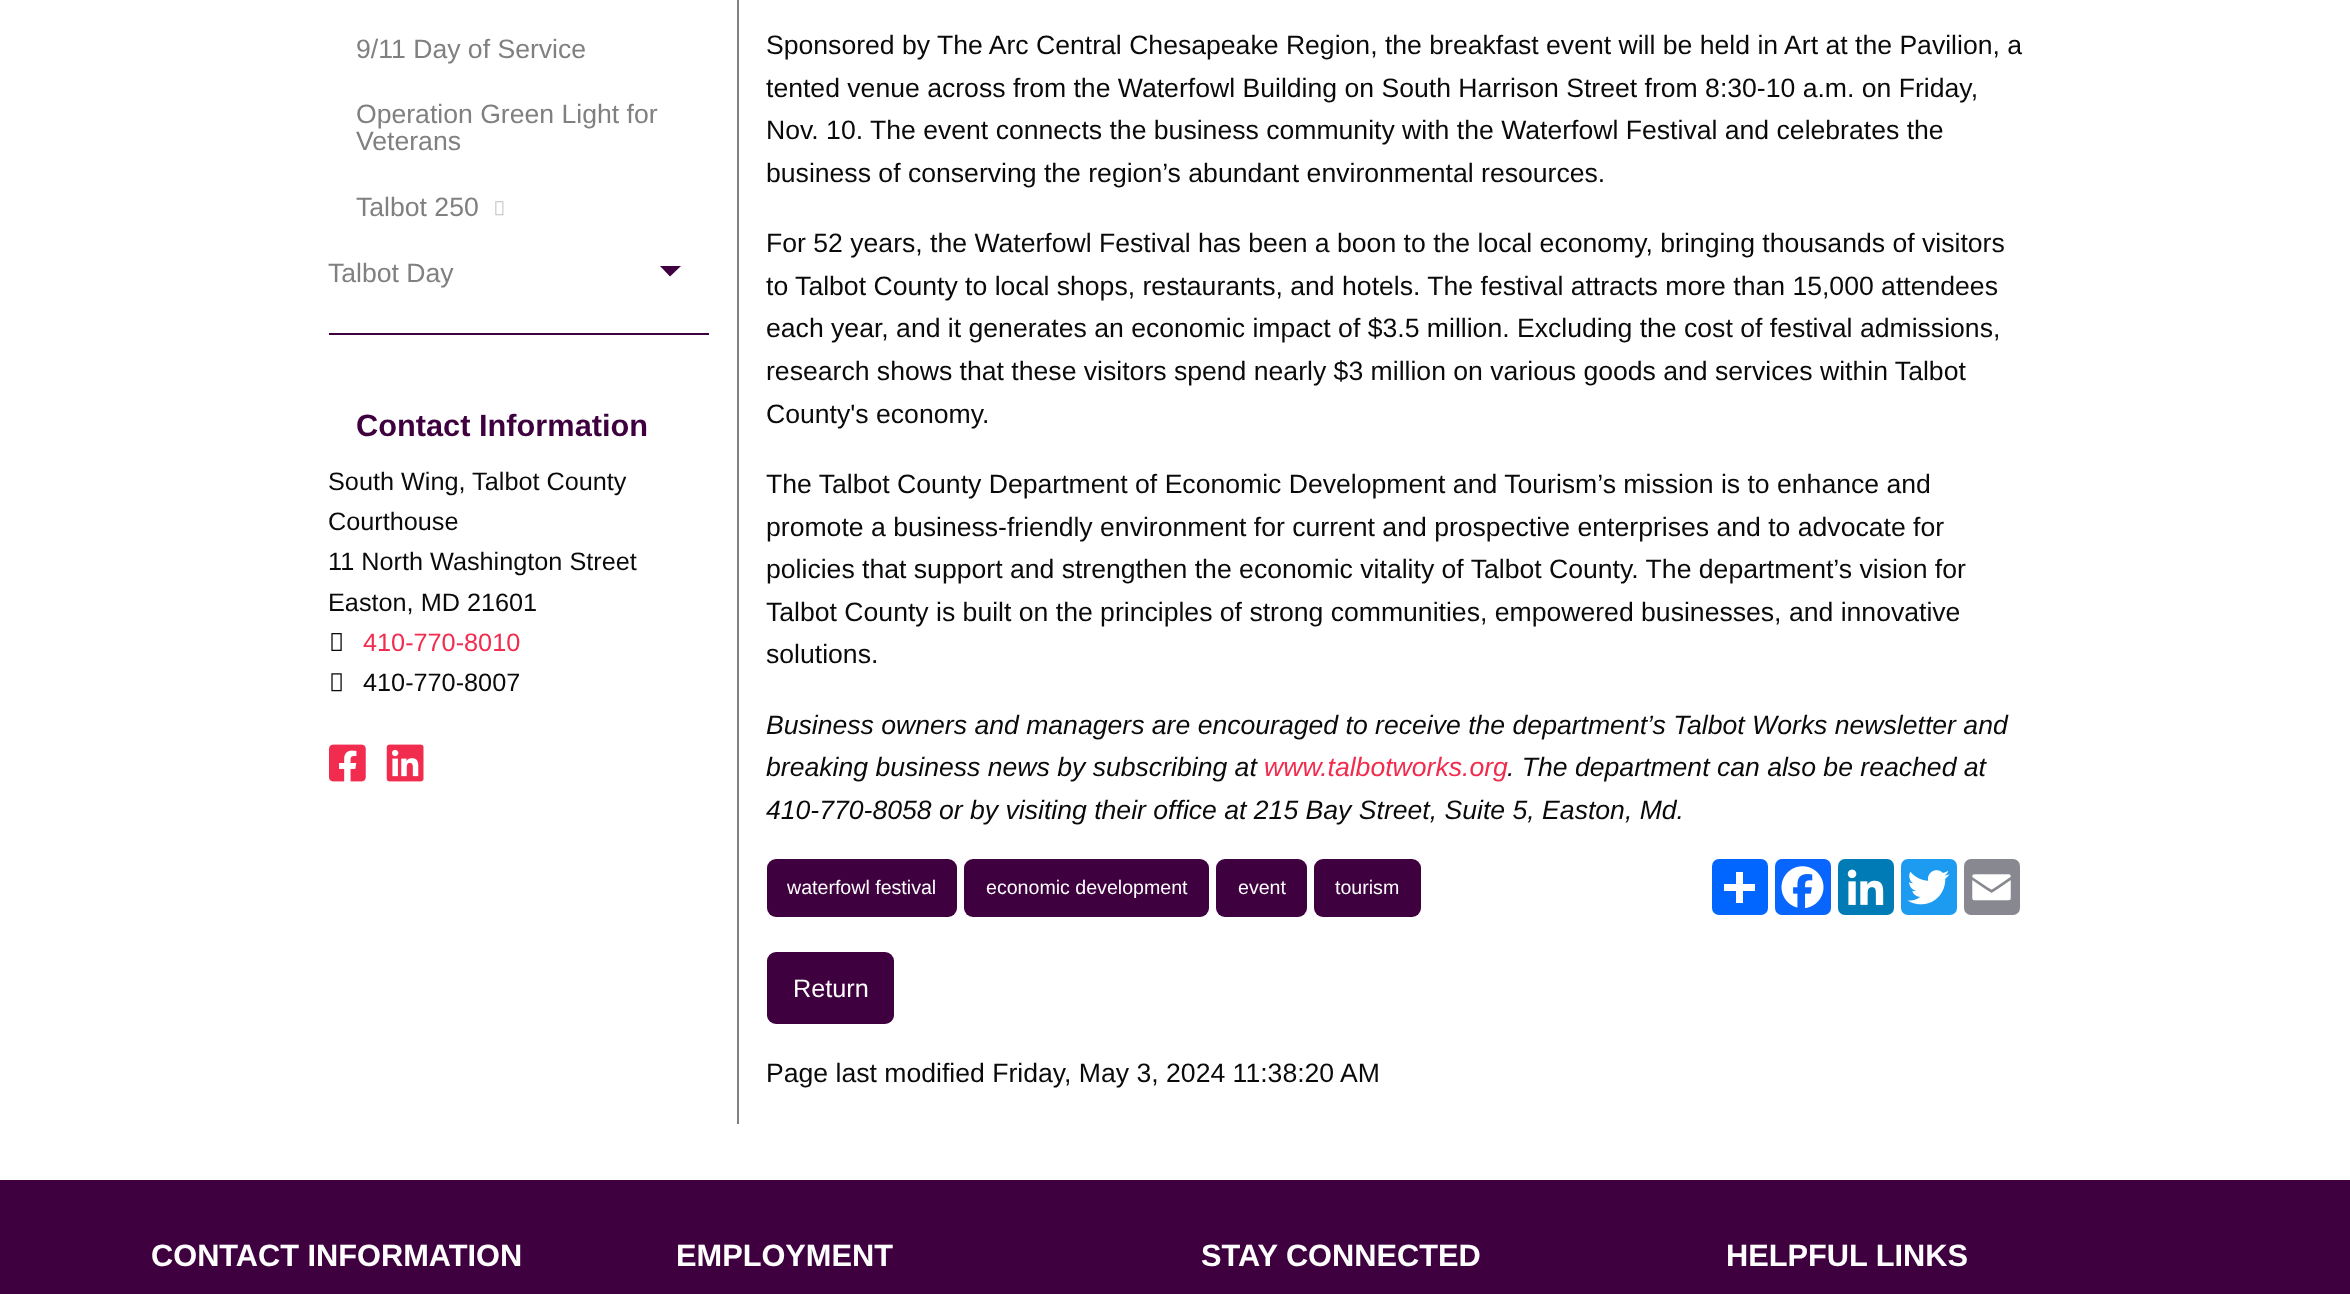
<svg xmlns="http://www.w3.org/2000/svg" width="2350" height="1294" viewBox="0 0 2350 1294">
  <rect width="100%" height="100%" fill="#fff"/>
  <path d="M737 0h2v1124H737z" fill="#808080"/>
  <image x="495" y="201" width="9" height="15" href="img/1.png"/>
  <path d="M660 266H681L670 276.5Z" fill="#3f003f"/>
  <path d="M329 333h380v2H329z" fill="#3f003f"/>
  <image x="331" y="633" width="11" height="18" href="img/2.png"/>
  <image x="331" y="673" width="11" height="19" href="img/3.png"/>
  <image x="329" y="744" width="37" height="38" href="img/4.png"/>
  <image x="386" y="744" width="38" height="38" href="img/5.png"/>
  <rect x="767" y="859" width="190" height="58" rx="9" fill="#3f003f"/>
  <rect x="964" y="859" width="245" height="58" rx="9" fill="#3f003f"/>
  <rect x="1216" y="859" width="91" height="58" rx="9" fill="#3f003f"/>
  <rect x="1314" y="859" width="107" height="58" rx="9" fill="#3f003f"/>
  <rect x="1712" y="859" width="56" height="56" rx="7" fill="#0166ff"/>
  <path d="M1736 872h7v31H1736z" fill="#fff"/>
  <path d="M1724 884h31v7H1724z" fill="#fff"/>
  <rect x="1775" y="859" width="56" height="56" rx="7" fill="#0866ff"/>
  <image x="1781" y="866" width="43" height="43" href="img/6.png"/>
  <rect x="1838" y="859" width="56" height="56" rx="7" fill="#007bb5"/>
  <image x="1847" y="869" width="37" height="36" href="img/7.png"/>
  <rect x="1901" y="859" width="56" height="56" rx="7" fill="#1d9bf0"/>
  <image x="1907" y="870" width="43" height="35" href="img/8.png"/>
  <rect x="1964" y="859" width="56" height="56" rx="7" fill="#888990"/>
  <image x="1972" y="874" width="39" height="27" href="img/9.png"/>
  <rect x="767" y="952" width="127" height="72" rx="9" fill="#3f003f"/>
  <path d="M0 1180h2350v114H0z" fill="#3f003f"/>
  <g font-family="Liberation Sans" font-size="26.6" fill="#808080">
    <text x="356" y="58">9/11 Day of Service</text>
    <text x="356" y="123">Operation Green Light for</text>
    <text x="356" y="150">Veterans</text>
    <text x="356" y="216">Talbot 250</text>
    <text x="328" y="282">Talbot Day</text>
  </g>
  <text x="356" y="436" font-family="Liberation Sans" font-size="30.75" font-weight="bold" fill="#3f003f">Contact Information</text>
  <g font-family="Liberation Sans" font-size="25.25" fill="#0a0a0a">
    <text x="328" y="490">South Wing, Talbot County</text>
    <text x="328" y="530">Courthouse</text>
    <text x="328" y="570">11 North Washington Street</text>
    <text x="328" y="611">Easton, MD 21601</text>
  </g>
  <text x="363" y="651" font-family="Liberation Sans" font-size="25.25" fill="#f12c4e">410-770-8010</text>
  <text x="363" y="691" font-family="Liberation Sans" font-size="25.25" fill="#0a0a0a">410-770-8007</text>
  <g font-family="Liberation Sans" font-size="26.6" fill="#0a0a0a">
    <text x="766" y="54">Sponsored by The Arc Central Chesapeake Region, the breakfast event will be held in Art at the Pavilion, a</text>
    <text x="766" y="97">tented venue across from the Waterfowl Building on South Harrison Street from 8:30-10 a.m. on Friday,</text>
    <text x="766" y="139">Nov. 10. The event connects the business community with the Waterfowl Festival and celebrates the</text>
    <text x="766" y="182">business of conserving the region’s abundant environmental resources.</text>
    <text x="766" y="252">For 52 years, the Waterfowl Festival has been a boon to the local economy, bringing thousands of visitors</text>
    <text x="766" y="295">to Talbot County to local shops, restaurants, and hotels. The festival attracts more than 15,000 attendees</text>
    <text x="766" y="337">each year, and it generates an economic impact of $3.5 million. Excluding the cost of festival admissions,</text>
    <text x="766" y="380">research shows that these visitors spend nearly $3 million on various goods and services within Talbot</text>
    <text x="766" y="423">County's economy.</text>
    <text x="766" y="493">The Talbot County Department of Economic Development and Tourism’s mission is to enhance and</text>
    <text x="766" y="536">promote a business-friendly environment for current and prospective enterprises and to advocate for</text>
    <text x="766" y="578">policies that support and strengthen the economic vitality of Talbot County. The department’s vision for</text>
    <text x="766" y="621">Talbot County is built on the principles of strong communities, empowered businesses, and innovative</text>
    <text x="766" y="663">solutions.</text>
  </g>
  <g font-family="Liberation Sans" font-size="26.6" font-style="italic" fill="#0a0a0a">
    <text x="766" y="734">Business owners and managers are encouraged to receive the department’s Talbot Works newsletter and</text>
    <text x="766" y="776">breaking business news by subscribing at</text>
  </g>
  <text x="1264" y="776" font-family="Liberation Sans" font-size="26.6" font-style="italic" fill="#f12c4e">www.talbotworks.org</text>
  <g font-family="Liberation Sans" font-size="26.6" font-style="italic" fill="#0a0a0a">
    <text x="1507" y="776">. The department can also be reached at</text>
    <text x="766" y="819">410-770-8058 or by visiting their office at 215 Bay Street, Suite 5, Easton, Md.</text>
  </g>
  <g font-family="Liberation Sans" font-size="19.6" fill="#fefefe">
    <text x="787" y="894">waterfowl festival</text>
    <text x="986" y="894">economic development</text>
    <text x="1238" y="894">event</text>
    <text x="1335" y="894">tourism</text>
  </g>
  <text x="793" y="997" font-family="Liberation Sans" font-size="25.25" fill="#fefefe">Return</text>
  <text x="766" y="1082" font-family="Liberation Sans" font-size="26.6" fill="#0a0a0a">Page last modified Friday, May 3, 2024 11:38:20 AM</text>
  <g font-family="Liberation Sans" font-size="30.75" font-weight="bold" fill="#fefefe">
    <text x="151" y="1266">CONTACT INFORMATION</text>
    <text x="676" y="1266">EMPLOYMENT</text>
    <text x="1201" y="1266">STAY CONNECTED</text>
    <text x="1726" y="1266">HELPFUL LINKS</text>
  </g>
</svg>
